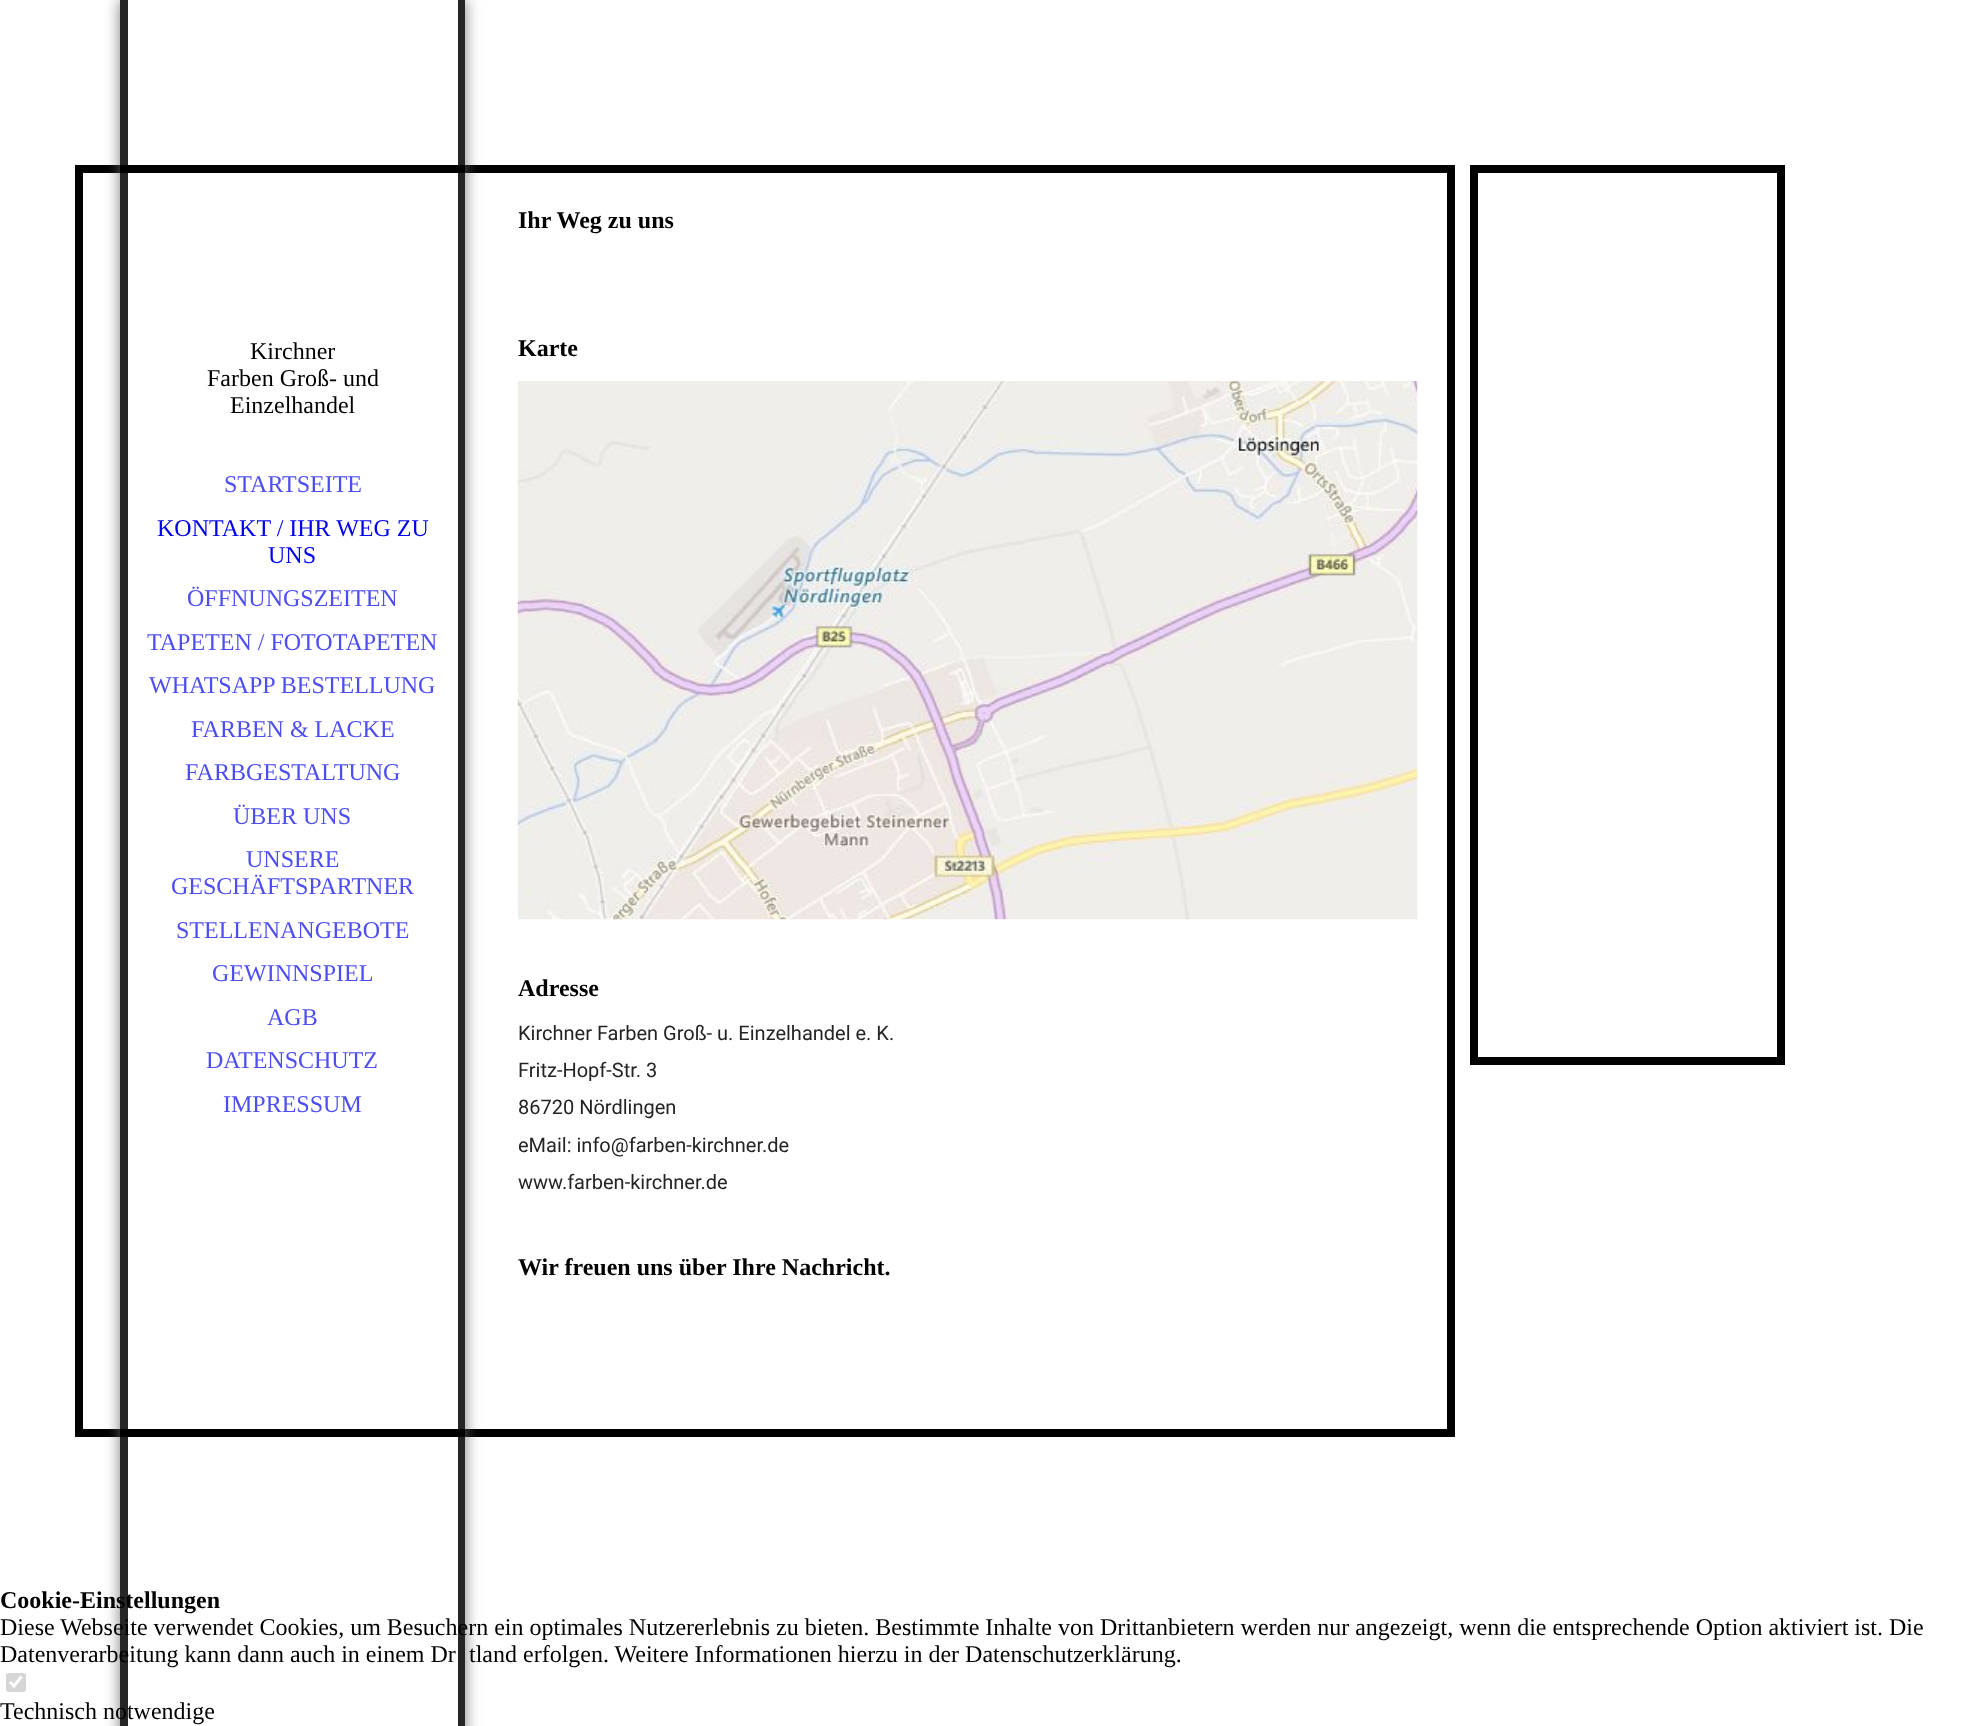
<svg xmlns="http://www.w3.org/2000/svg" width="1964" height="1726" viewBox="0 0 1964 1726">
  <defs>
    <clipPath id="clip1"><path d="M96 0H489V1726H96ZM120 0H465V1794H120Z" clip-rule="evenodd"/></clipPath>
  </defs>
  <rect width="100%" height="100%" fill="#fff"/>
  <path d="M79 169h1372v1264H79z" fill="none" stroke="#000" stroke-width="8"/>
  <g clip-path="url(#clip1)">
    <path d="M120 0h345v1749H120z" fill="#666666d9" filter="blur(7.5px)"/>
  </g>
  <image x="517" y="381" width="901" height="539" href="img/1.png"/>
  <path d="M1474 169h307v892H1474z" fill="none" stroke="#000" stroke-width="8"/>
  <rect x="6" y="1673" width="20" height="19" rx="3" fill="#d6d6d6"/>
  <path d="M10 1682L14 1686L21.5 1676.5" fill="none" stroke="#fff" stroke-width="3.1"/>
  <g font-family="Liberation Serif" font-size="24" font-weight="bold" fill="#000">
    <text x="518" y="228">Ihr Weg zu uns</text>
    <text x="518" y="356">Karte</text>
    <text x="518" y="996">Adresse</text>
  </g>
  <g font-family="Roboto" font-size="20" fill="#242424">
    <text x="518" y="1040">Kirchner Farben Groß- u. Einzelhandel e. K.</text>
    <text x="518" y="1077">Fritz-Hopf-Str. 3</text>
    <text x="518" y="1114">86720 Nördlingen</text>
    <text x="518" y="1152">eMail: info@farben-kirchner.de</text>
    <text x="518" y="1189">www.farben-kirchner.de</text>
  </g>
  <text x="518" y="1275" font-family="Liberation Serif" font-size="24" font-weight="bold" fill="#000">Wir freuen uns über Ihre Nachricht.</text>
  <g font-family="Liberation Serif" font-size="24" fill="#000">
    <text x="250" y="359">Kirchner</text>
    <text x="207" y="386">Farben Groß- und</text>
    <text x="230" y="413">Einzelhandel</text>
  </g>
  <text x="224" y="492" font-family="Liberation Serif" font-size="24" fill="#4d4df3">STARTSEITE</text>
  <g font-family="Liberation Serif" font-size="24" fill="#00e">
    <text x="157" y="536">KONTAKT / IHR WEG ZU</text>
    <text x="268" y="563">UNS</text>
  </g>
  <g font-family="Liberation Serif" font-size="24" fill="#4d4df3">
    <text x="187" y="606">ÖFFNUNGSZEITEN</text>
    <text x="147" y="650">TAPETEN / FOTOTAPETEN</text>
    <text x="149" y="693">WHATSAPP BESTELLUNG</text>
    <text x="191" y="737">FARBEN &amp; LACKE</text>
    <text x="185" y="780">FARBGESTALTUNG</text>
    <text x="233" y="824">ÜBER UNS</text>
    <text x="246" y="867">UNSERE</text>
    <text x="171" y="894">GESCHÄFTSPARTNER</text>
    <text x="176" y="938">STELLENANGEBOTE</text>
    <text x="212" y="981">GEWINNSPIEL</text>
    <text x="267" y="1025">AGB</text>
    <text x="206" y="1068">DATENSCHUTZ</text>
    <text x="223" y="1112">IMPRESSUM</text>
  </g>
  <text x="0" y="1608" font-family="Liberation Serif" font-size="24" font-weight="bold" fill="#000">Cookie-Einstellungen</text>
  <text x="0" y="1635" font-family="Liberation Serif" font-size="24" fill="#000">Diese Webseite verwendet Cookies, um Besuchern ein optimales Nutzererlebnis zu bieten. Bestimmte Inhalte von Drittanbietern werden nur angezeigt, wenn die entsprechende Option aktiviert ist. Die</text>
  <path d="M458 0h7v1726H458z" fill="#000000d9"/>
  <g font-family="Liberation Serif" font-size="24" fill="#000">
    <text x="0" y="1662">Datenverarbeitung kann dann auch in einem Dr</text>
    <text x="469" y="1662">tland erfolgen. Weitere Informationen hierzu in der Datenschutzerklärung.</text>
    <text x="0" y="1719">Technisch notwendige</text>
  </g>
  <path d="M120 0h8v1726H120z" fill="#000000d9"/>
</svg>
